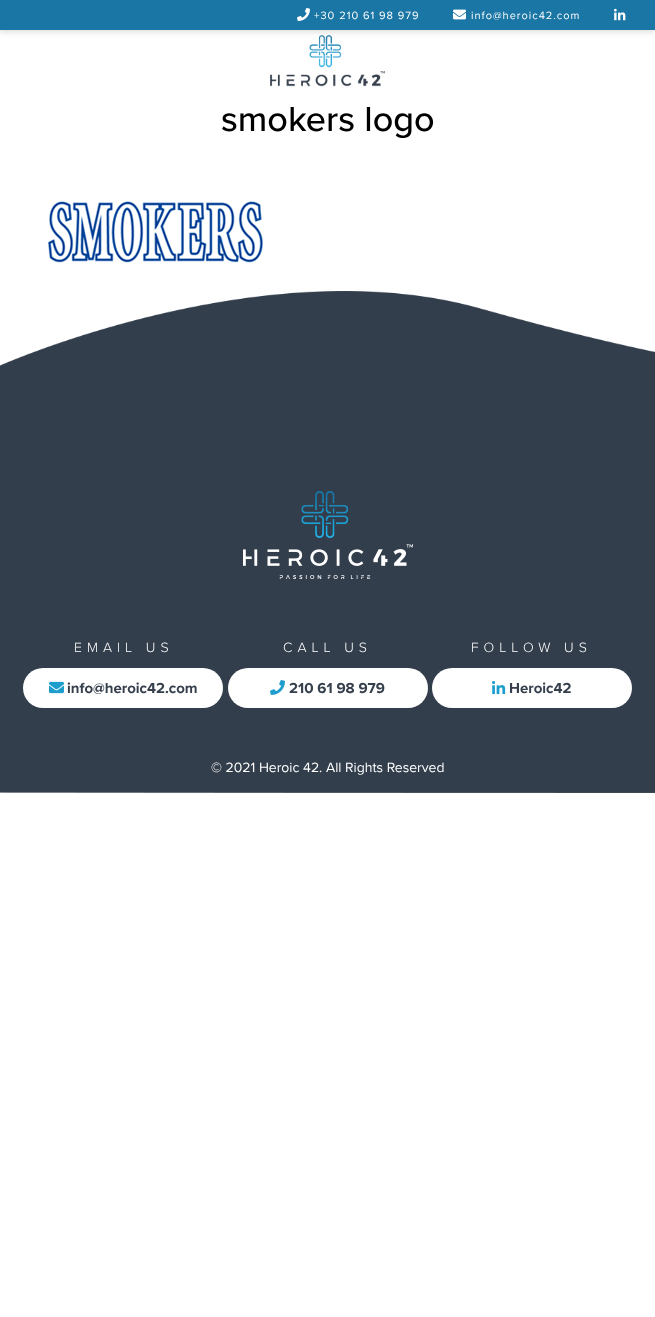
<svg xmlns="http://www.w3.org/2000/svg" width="655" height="1317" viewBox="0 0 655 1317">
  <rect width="100%" height="100%" fill="#fff"/>
  <image x="270" y="35" width="115" height="52" href="img/4.png"/>
  <path d="M-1 -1h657v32H-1z" fill="#0000002b" filter="blur(3.5px)"/>
  <path d="M0 0h655v30H0z" fill="#1a76a5"/>
  <image x="297" y="8" width="13" height="13" href="img/1.png"/>
  <image x="453" y="9" width="13" height="11" href="img/2.png"/>
  <image x="614" y="8" width="12" height="13" href="img/3.png"/>
  <image x="48" y="201" width="215" height="62" href="img/5.png"/>
  <image x="0" y="291" width="655" height="502" href="img/6.png"/>
  <image x="243" y="491" width="170" height="88" href="img/7.png"/>
  <rect x="23" y="668" width="200" height="40" rx="20" fill="#fff"/>
  <image x="49" y="681" width="15" height="13" href="img/8.png"/>
  <rect x="228" y="668" width="200" height="40" rx="20" fill="#fff"/>
  <image x="270" y="680" width="15" height="15" href="img/9.png"/>
  <rect x="432" y="668" width="200" height="40" rx="20" fill="#fff"/>
  <image x="492" y="681" width="14" height="14" href="img/10.png"/>
  <g font-family="Proxima Nova" font-size="11" letter-spacing="1" fill="#fff">
    <text x="314" y="19">+30 210 61 98 979</text>
    <text x="471" y="19">info@heroic42.com</text>
  </g>
  <text x="221" y="131" font-family="Proxima Nova" font-size="36" font-weight="500" fill="#000">smokers logo</text>
  <text x="74" y="652" font-family="Proxima Nova" font-size="14" font-weight="300" letter-spacing="5" fill="#fff">EMAIL US</text>
  <text x="67" y="693" font-family="Proxima Nova" font-size="15" font-weight="bold" fill="#36404d">info@heroic42.com</text>
  <text x="283" y="652" font-family="Proxima Nova" font-size="14" font-weight="300" letter-spacing="5" fill="#fff">CALL US</text>
  <text x="289" y="693" font-family="Proxima Nova" font-size="15" font-weight="bold" fill="#36404d">210 61 98 979</text>
  <text x="471" y="652" font-family="Proxima Nova" font-size="14" font-weight="300" letter-spacing="5" fill="#fff">FOLLOW US</text>
  <text x="509" y="693" font-family="Proxima Nova" font-size="15" font-weight="bold" fill="#36404d">Heroic42</text>
  <text x="211" y="772" font-family="Proxima Nova" font-size="14" fill="#fff">© 2021 Heroic 42. All Rights Reserved</text>
</svg>
